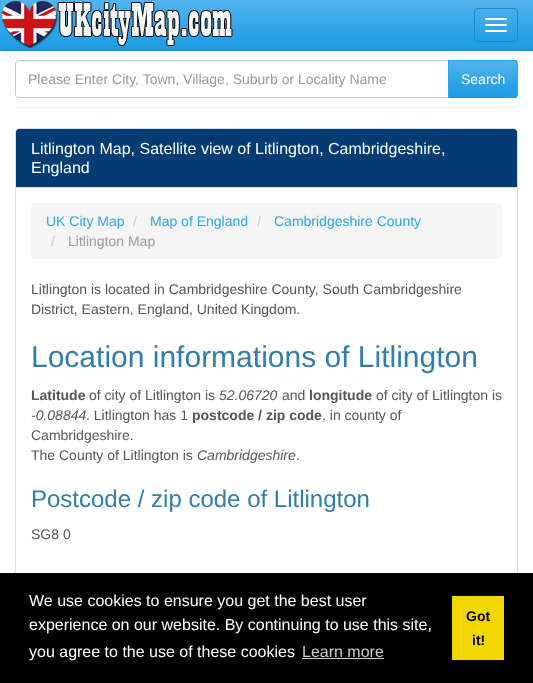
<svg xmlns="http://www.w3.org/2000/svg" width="533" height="683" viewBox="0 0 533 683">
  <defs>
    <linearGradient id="g1" gradientUnits="userSpaceOnUse" x1="483" y1="61" x2="483" y2="97"><stop offset="0" stop-color="#54b4eb"/><stop offset="0.6" stop-color="#2fa4e7"/><stop offset="1" stop-color="#1d9ce5"/></linearGradient>
    <linearGradient id="g2" gradientUnits="userSpaceOnUse" x1="267" y1="0" x2="267" y2="50"><stop offset="0" stop-color="#54b4eb"/><stop offset="0.6" stop-color="#2fa4e7"/><stop offset="1" stop-color="#1d9ce5"/></linearGradient>
  </defs>
  <rect width="100%" height="100%" fill="#fff"/>
  <path d="M19 62H448V61H19C17 61 16 63 16 65C16 63 17 62 19 62Z" fill="#ececec"/>
  <path d="M19 60.5H448.5V97.5H19C17 97.5 15.5 96 15.5 94V64C15.5 62 17 60.5 19 60.5Z" fill="none" stroke="#ccc"/>
  <path d="M448 60H514C516 60 518 62 518 64V94C518 96 516 98 514 98H448Z" fill="#2fa4e7"/>
  <path d="M449 61h68v36H449z" fill="url(#g1)"/>
  <path d="M448 60L449 61H492L513 60C514 61 515 61 516 62L517 61L516 60Z" fill="#2fa4e7"/>
  <path d="M518 93C518 94.5 517.5 96 517 97L516 96C517.5 94 517 89 517 79C517 69 517.5 64 516 62L517 61C517.5 62 518 63.5 518 65Z" fill="#2fa4e7"/>
  <path d="M517 97L516 96C515 97 514 97 513 98L492 97H449L448 98H516Z" fill="#178acc"/>
  <path d="M448 60V98L449 97V61Z" fill="#2fa4e7"/>
  <path d="M0 1h533v51H0z" fill="#0000001a" filter="blur(5px)"/>
  <path d="M0 0h533v50H0z" fill="url(#g2)"/>
  <path d="M0 50h533v1H0z" fill="#178acc"/>
  <image x="2" y="1" width="231" height="47" href="img/1.png"/>
  <rect x="474.5" y="8.5" width="43" height="33" rx="3.5" fill="none" stroke="#178acc"/>
  <rect x="485" y="18" width="22" height="2" rx="1" fill="#fff"/>
  <rect x="485" y="24" width="22" height="2" rx="1" fill="#fff"/>
  <rect x="485" y="30" width="22" height="2" rx="1" fill="#fff"/>
  <path d="M15 107h503v1H15z" fill="#eee"/>
  <rect x="15.5" y="128.5" width="502" height="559" rx="3.5" fill="none" stroke="#ddd"/>
  <path d="M19 129H514C515.5 129 517 130.5 517 132V188H16V132C16 130.5 17.5 129 19 129Z" fill="#033c73"/>
  <path d="M16 187h501v1H16z" fill="#ddd"/>
  <rect x="31" y="203" width="471" height="56" rx="4" fill="#f5f5f5"/>
  <path d="M0 573h533v110H0z" fill="#000"/>
  <path d="M302 658h82v1H302z" fill="#ccc"/>
  <path d="M452 596h52v64H452z" fill="#f1d600"/>
  <text x="28" y="84" font-family="Liberation Sans" font-size="14" fill="#999">Please Enter City, Town, Village, Suburb or Locality Name</text>
  <text x="461" y="84" font-family="Liberation Sans" font-size="14" fill="#fff">Search</text>
  <g font-family="Liberation Sans" font-size="16" fill="#fff">
    <text x="31" y="154">Litlington Map, Satellite view of Litlington, Cambridgeshire,</text>
    <text x="31" y="173">England</text>
  </g>
  <text x="46" y="226" font-family="Liberation Sans" font-size="14" fill="#2fa4e7">UK City Map</text>
  <text x="133" y="226" font-family="Liberation Sans" font-size="14" fill="#ccc">/</text>
  <text x="150" y="226" font-family="Liberation Sans" font-size="14" fill="#2fa4e7">Map of England</text>
  <text x="257" y="226" font-family="Liberation Sans" font-size="14" fill="#ccc">/</text>
  <text x="274" y="226" font-family="Liberation Sans" font-size="14" fill="#2fa4e7">Cambridgeshire County</text>
  <text x="51" y="246" font-family="Liberation Sans" font-size="14" fill="#ccc">/</text>
  <text x="68" y="246" font-family="Liberation Sans" font-size="14" fill="#999">Litlington Map</text>
  <g font-family="Liberation Sans" font-size="14" fill="#555">
    <text x="31" y="294">Litlington is located in Cambridgeshire County, South Cambridgeshire</text>
    <text x="31" y="314">District, Eastern, England, United Kingdom.</text>
  </g>
  <text x="31" y="367" font-family="Liberation Sans" font-size="30" fill="#317eac">Location informations of Litlington</text>
  <text x="31" y="400" font-family="Liberation Sans" font-size="14" font-weight="bold" fill="#555">Latitude</text>
  <text x="89" y="400" font-family="Liberation Sans" font-size="14" fill="#555">of city of Litlington is</text>
  <text x="219" y="400" font-family="Liberation Sans" font-size="14" font-style="italic" fill="#555">52.06720</text>
  <text x="282" y="400" font-family="Liberation Sans" font-size="14" fill="#555">and</text>
  <text x="309" y="400" font-family="Liberation Sans" font-size="14" font-weight="bold" fill="#555">longitude</text>
  <text x="376" y="400" font-family="Liberation Sans" font-size="14" fill="#555">of city of Litlington is</text>
  <text x="31" y="420" font-family="Liberation Sans" font-size="14" font-style="italic" fill="#555">-0.08844</text>
  <text x="86" y="420" font-family="Liberation Sans" font-size="14" fill="#555">. Litlington has 1</text>
  <text x="192" y="420" font-family="Liberation Sans" font-size="14" font-weight="bold" fill="#555">postcode / zip code</text>
  <g font-family="Liberation Sans" font-size="14" fill="#555">
    <text x="322" y="420">, in county of</text>
    <text x="31" y="440">Cambridgeshire.</text>
    <text x="31" y="460">The County of Litlington is</text>
  </g>
  <text x="197" y="460" font-family="Liberation Sans" font-size="14" font-style="italic" fill="#555">Cambridgeshire</text>
  <text x="296" y="460" font-family="Liberation Sans" font-size="14" fill="#555">.</text>
  <text x="31" y="507" font-family="Liberation Sans" font-size="24" fill="#317eac">Postcode / zip code of Litlington</text>
  <text x="31" y="539" font-family="Liberation Sans" font-size="14" fill="#555">SG8 0</text>
  <g font-family="Liberation Sans" font-size="16" fill="#fff">
    <text x="29" y="606">We use cookies to ensure you get the best user</text>
    <text x="29" y="630">experience on our website. By continuing to use this site,</text>
    <text x="29" y="657">you agree to the use of these cookies</text>
  </g>
  <text x="302" y="657" font-family="Liberation Sans" font-size="16" fill="#ccc">Learn more</text>
  <g font-family="Liberation Sans" font-size="14" font-weight="bold" fill="#000">
    <text x="466" y="621">Got</text>
    <text x="472" y="645">it!</text>
  </g>
</svg>
